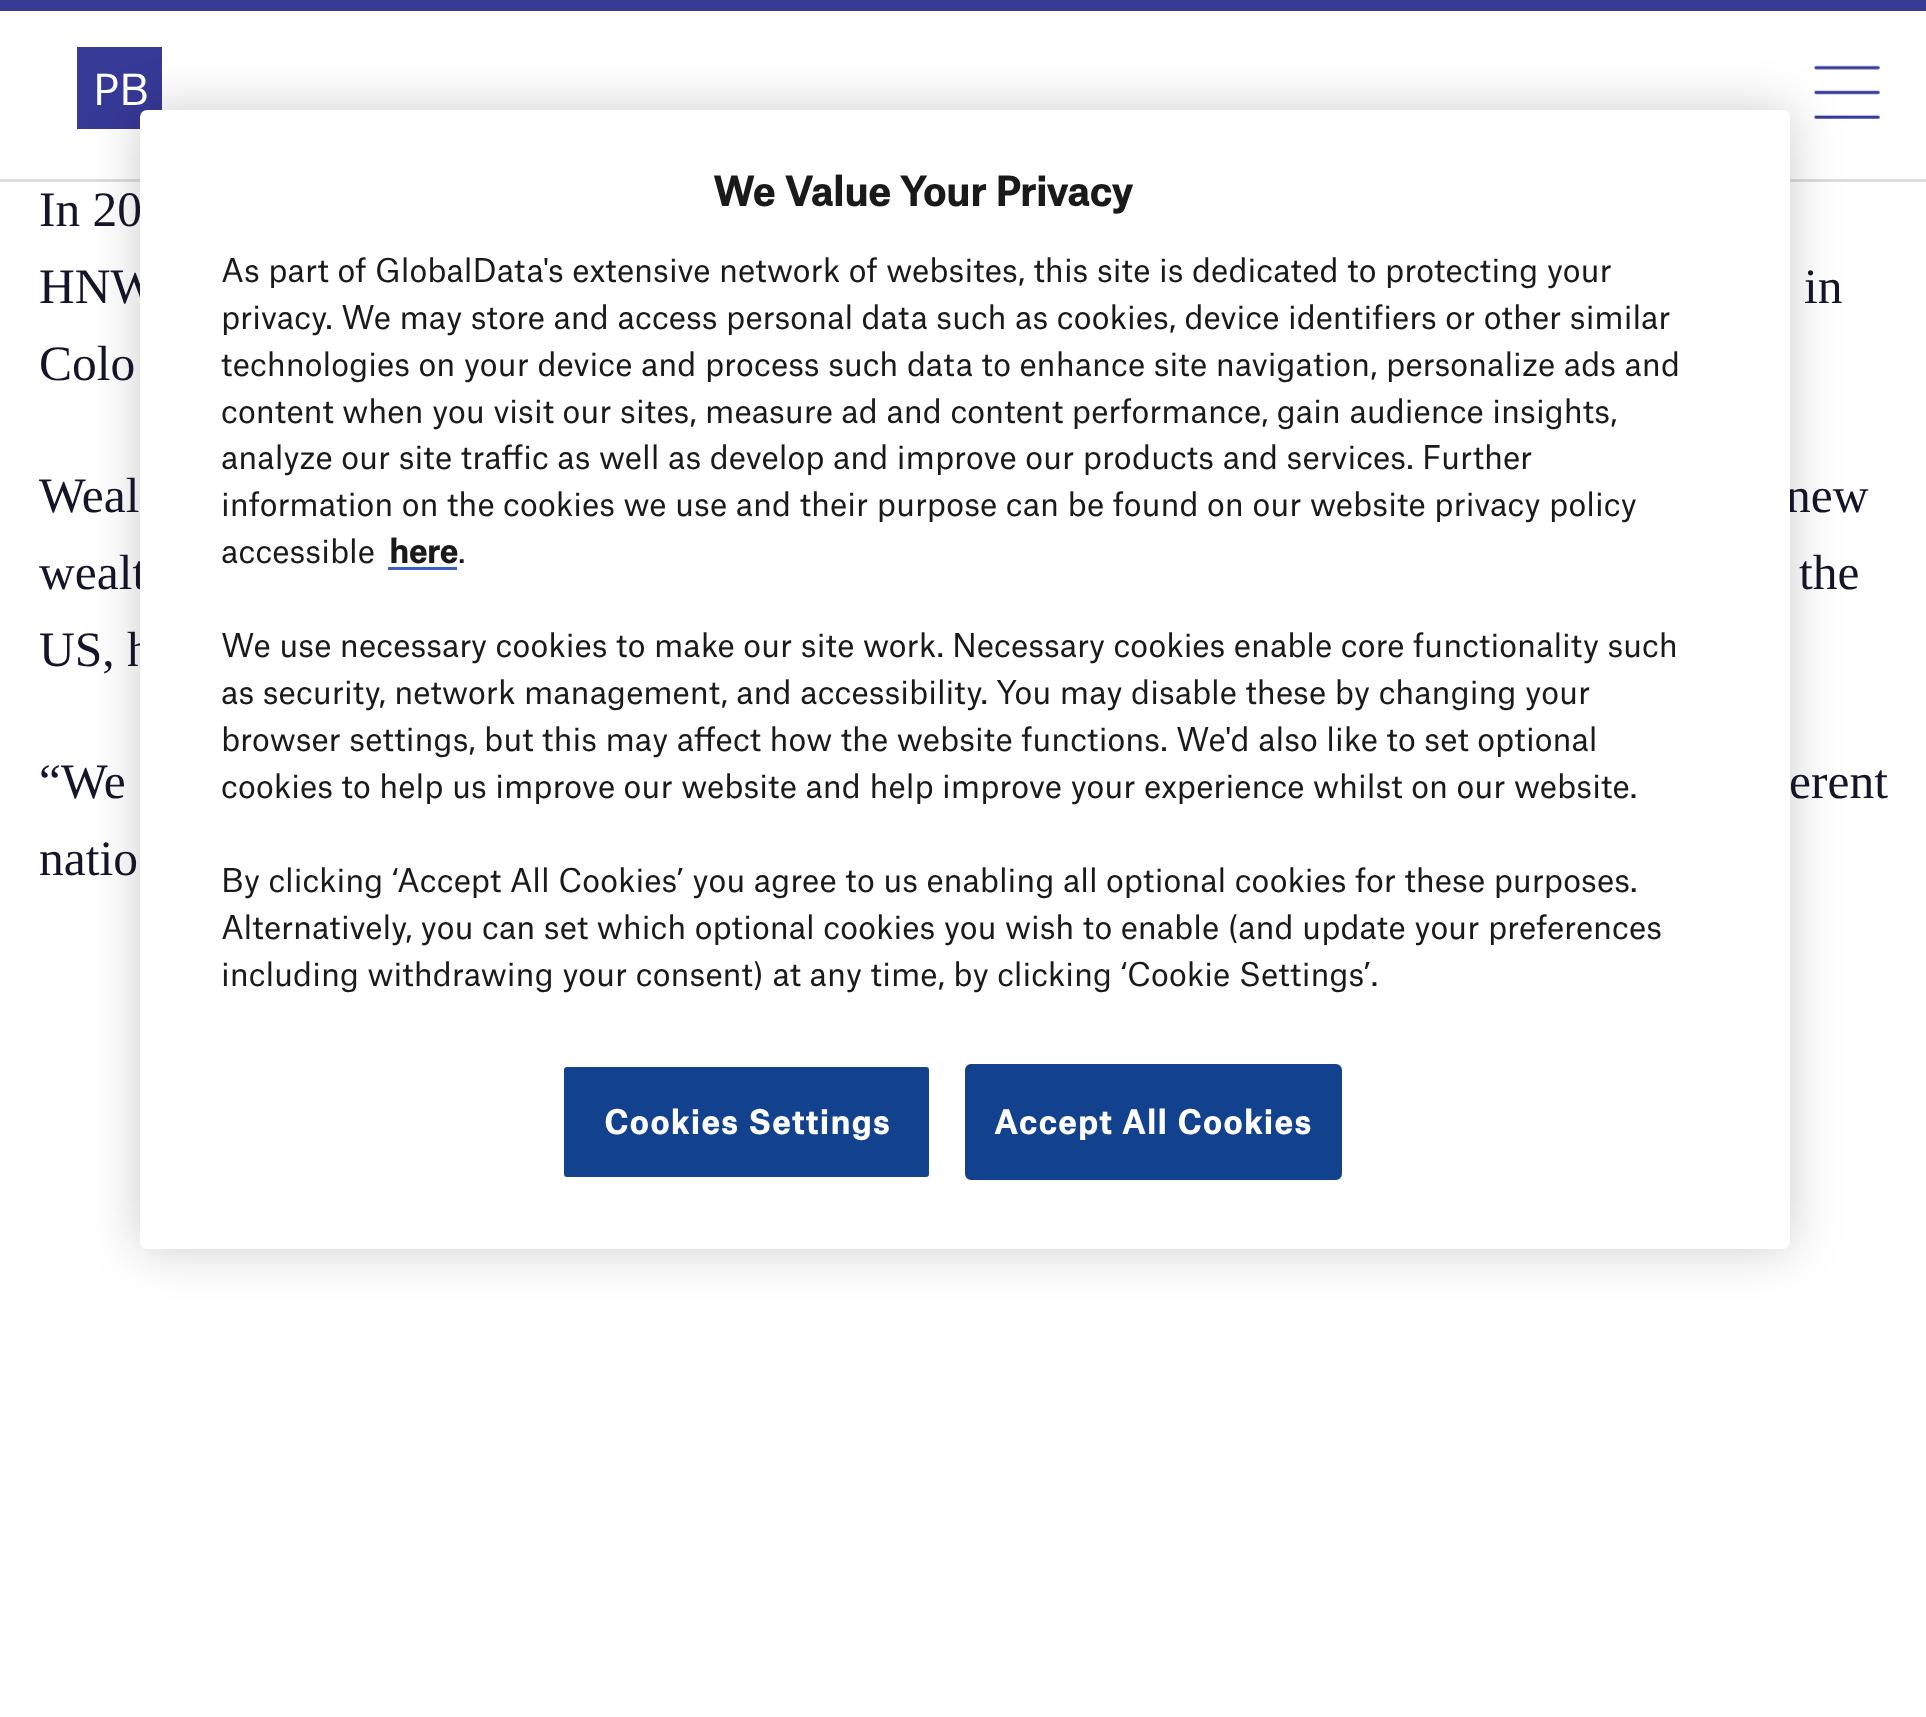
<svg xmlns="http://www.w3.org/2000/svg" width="1926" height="1717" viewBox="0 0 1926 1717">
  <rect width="100%" height="100%" fill="#fff"/>
  <path d="M0 0h1926v11H0z" fill="#373997"/>
  <path d="M0 179h1926v3H0z" fill="#ddd"/>
  <path d="M77 47h85v82H77z" fill="#373997"/>
  <image x="1813" y="65" width="67" height="54" href="img/1.png"/>
  <rect x="140" y="110" width="1650" height="1139" rx="7" fill="#00000033" filter="blur(25px)"/>
  <text x="93" y="105" font-family="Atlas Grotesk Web" font-size="41" fill="#fff">PB</text>
  <g font-family="Liberation Serif" font-size="49.5" fill="#151529">
    <text x="39" y="226">In 20</text>
    <text x="39" y="303">HNW</text>
    <text x="1804" y="303">in</text>
    <text x="39" y="380">Colo</text>
    <text x="39" y="512">Weal</text>
    <text x="1786" y="512">new</text>
    <text x="39" y="589">wealt</text>
    <text x="1799" y="589">the</text>
    <text x="39" y="666">US, h</text>
  </g>
  <rect x="140" y="110" width="1650" height="1139" rx="7" fill="#fff"/>
  <rect x="562.5" y="1065.5" width="368" height="113" rx="4.5" fill="#12418d" stroke="#fff" stroke-width="3"/>
  <text x="604" y="1134" font-family="Atlas Grotesk Web" font-size="31.3" font-weight="bold" letter-spacing="1.6" fill="#fff">Cookies Settings</text>
  <rect x="966.5" y="1065.5" width="374" height="113" rx="4.5" fill="#12418d" stroke="#12418d" stroke-width="3"/>
  <text x="994" y="1134" font-family="Atlas Grotesk Web" font-size="31.3" font-weight="bold" letter-spacing="1.6" fill="#fff">Accept All Cookies</text>
  <g font-family="Atlas Grotesk Web" font-size="31.3" fill="#1a1a1a">
    <text x="221" y="986">including withdrawing your consent) at any time, by clicking ‘Cookie Settings’.</text>
    <text x="221" y="939">Alternatively, you can set which optional cookies you wish to enable (and update your preferences</text>
    <text x="221" y="892">By clicking ‘Accept All Cookies’ you agree to us enabling all optional cookies for these purposes.</text>
    <text x="221" y="798">cookies to help us improve our website and help improve your experience whilst on our website.</text>
    <text x="1176" y="751">We'd also like to set optional</text>
    <text x="221" y="751">browser settings, but this may affect how the website functions.</text>
    <text x="221" y="704">as security, network management, and accessibility. You may disable these by changing your</text>
    <text x="952" y="657">Necessary cookies enable core functionality such</text>
    <text x="221" y="657">We use necessary cookies to make our site work.</text>
    <text x="458" y="563">.</text>
  </g>
  <text x="389" y="563" font-family="Atlas Grotesk Web" font-size="31.3" font-weight="bold" fill="#1a1a1a">here</text>
  <path d="M388 567h69v3H388z" fill="#3860be"/>
  <g font-family="Atlas Grotesk Web" font-size="31.3" fill="#1a1a1a">
    <text x="221" y="563">accessible</text>
    <text x="221" y="516">information on the cookies we use and their purpose can be found on our website privacy policy</text>
    <text x="1422" y="469">Further</text>
    <text x="221" y="469">analyze our site traffic as well as develop and improve our products and services.</text>
    <text x="221" y="423">content when you visit our sites, measure ad and content performance, gain audience insights,</text>
    <text x="1386" y="376">personalize ads and</text>
    <text x="221" y="376">technologies on your device and process such data to enhance site navigation,</text>
    <text x="221" y="329">privacy. We may store and access personal data such as cookies, device identifiers or other similar</text>
    <text x="221" y="282">As part of GlobalData's extensive network of websites, this site is dedicated to protecting your</text>
  </g>
  <text x="713" y="206" font-family="Atlas Grotesk Web" font-size="38.5" font-weight="bold" fill="#1a1a1a">We Value Your Privacy</text>
  <g font-family="Liberation Serif" font-size="49.5" fill="#151529">
    <text x="39" y="798">“We</text>
    <text x="1789" y="798">erent</text>
    <text x="39" y="875">natio</text>
  </g>
</svg>
